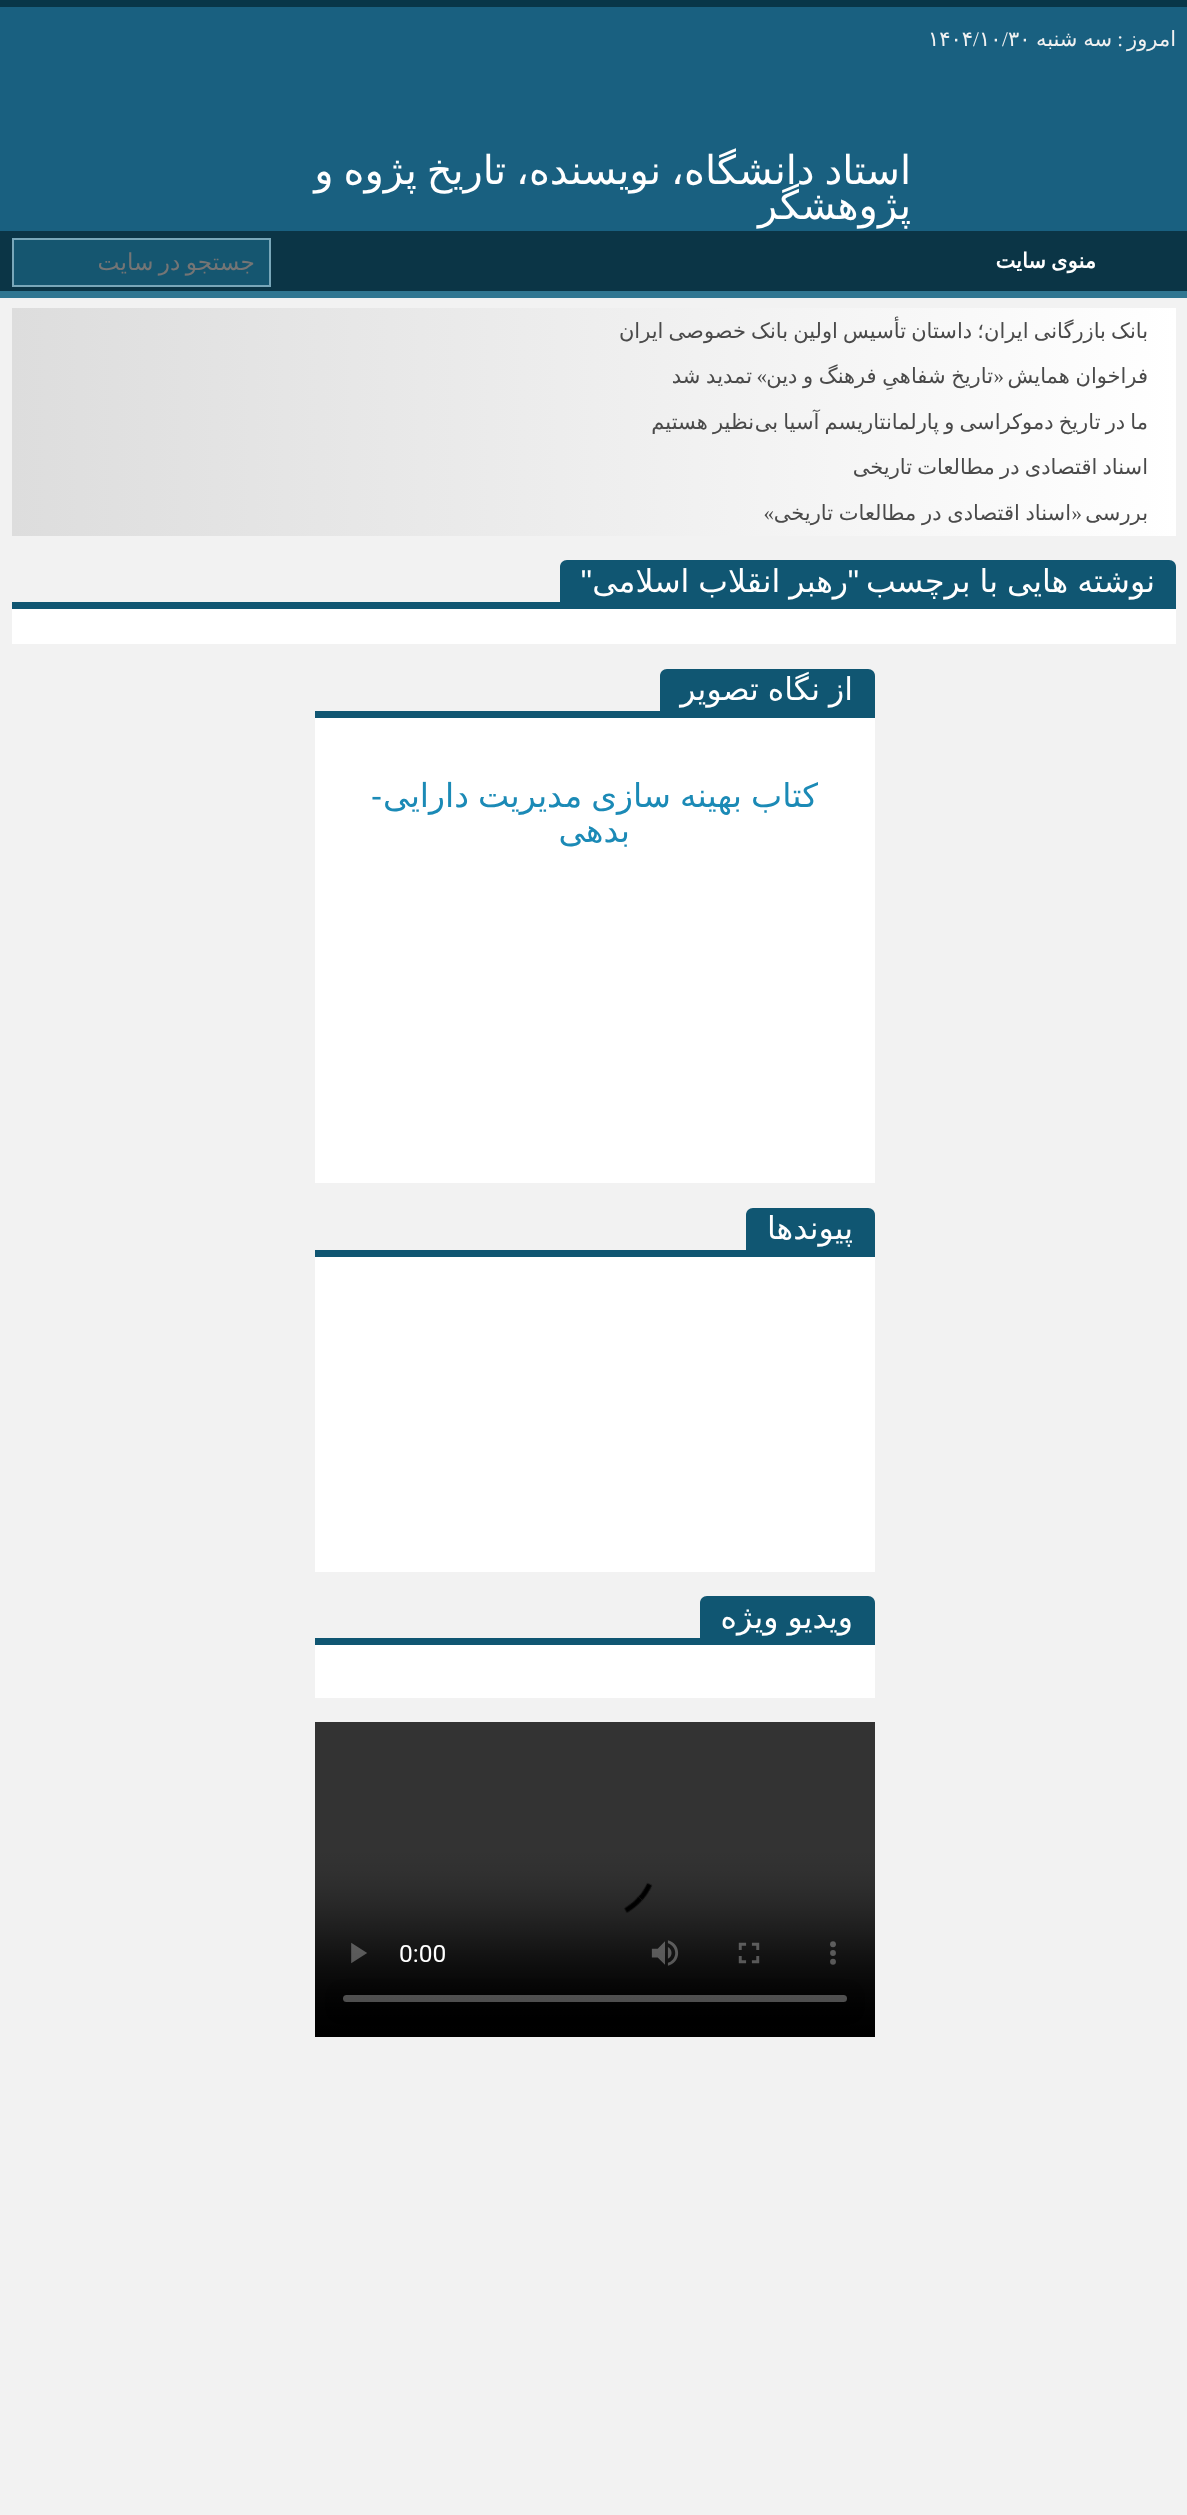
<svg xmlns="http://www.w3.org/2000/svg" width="1187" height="2515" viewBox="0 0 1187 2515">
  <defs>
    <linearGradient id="g1" gradientUnits="userSpaceOnUse" x1="12" y1="422" x2="1176" y2="422"><stop offset="0" stop-color="#ddd"/><stop offset="1" stop-color="#fff"/></linearGradient>
  </defs>
  <rect width="100%" height="100%" fill="#f2f2f2"/>
  <path d="M0 7h1187v224H0z" fill="#196080"/>
  <path d="M0 0h1187v7H0z" fill="#083648"/>
  <path d="M0 291h1187v7H0z" fill="#307691"/>
  <path d="M0 231h1187v60H0z" fill="#0b3546"/>
  <path d="M13 239h257v47H13z" fill="#155670" stroke="#79a7b9" stroke-width="2"/>
  <path d="M12 308h1164v228H12z" fill="url(#g1)"/>
  <path d="M567 560H1169C1173 560 1176 563 1176 567V602H560V567C560 563 563 560 567 560Z" fill="#105672"/>
  <path d="M12 609h1164v35H12z" fill="#fff"/>
  <path d="M12 602h1164v7H12z" fill="#105672"/>
  <path d="M667 669H868C872 669 875 672 875 676V711H660V676C660 672 663 669 667 669Z" fill="#105672"/>
  <path d="M315 718h560v465H315z" fill="#fff"/>
  <path d="M315 711h560v7H315z" fill="#105672"/>
  <path d="M753 1208H868C872 1208 875 1211 875 1215V1250H746V1215C746 1211 749 1208 753 1208Z" fill="#105672"/>
  <path d="M315 1257h560v315H315z" fill="#fff"/>
  <path d="M315 1250h560v7H315z" fill="#105672"/>
  <path d="M707 1596H868C872 1596 875 1599 875 1603V1638H700V1603C700 1599 703 1596 707 1596Z" fill="#105672"/>
  <path d="M315 1645h560v53H315z" fill="#fff"/>
  <path d="M315 1638h560v7H315z" fill="#105672"/>
  <image x="315" y="1722" width="560" height="315" href="img/1.png"/>
  <text x="1176" y="46" font-family="DejaVu Sans" font-size="21" direction="rtl" fill="#f1f1f1">امروز</text>
  <text x="1123" y="46" font-family="Liberation Serif" font-size="21" direction="rtl" fill="#f1f1f1">:</text>
  <text x="1112" y="46" word-spacing="-1" font-family="DejaVu Sans" font-size="21" direction="rtl" fill="#f1f1f1">سه شنبه</text>
  <text x="1008" y="46" font-family="DejaVu Sans" font-size="21" fill="#f1f1f1">۳۰</text>
  <text x="1002" y="46" font-family="Liberation Serif" font-size="21" fill="#f1f1f1">/</text>
  <text x="979" y="46" font-family="DejaVu Sans" font-size="21" fill="#f1f1f1">۱۰</text>
  <text x="973" y="46" font-family="Liberation Serif" font-size="21" fill="#f1f1f1">/</text>
  <text x="928" y="46" font-family="DejaVu Sans" font-size="21" fill="#f1f1f1">۱۴۰۴</text>
  <g font-family="DejaVu Sans" font-size="39.9" direction="rtl" fill="#fff">
    <text x="911" y="184" word-spacing="-2.75">استاد دانشگاه، نویسنده، تاریخ پژوه و</text>
    <text x="911" y="219">پژوهشگر</text>
  </g>
  <text x="1096" y="268" word-spacing="-1.5" font-family="DejaVu Sans" font-size="21" font-weight="bold" direction="rtl" fill="#fff">منوی سایت</text>
  <text x="255" y="270" word-spacing="-2" font-family="DejaVu Sans" font-size="23.25" direction="rtl" fill="#757575">جستجو در سایت</text>
  <g font-family="DejaVu Sans" font-size="21" direction="rtl" fill="#4a4a4a">
    <text x="1148" y="338" word-spacing="-1.5">بانک بازرگانی ایران؛ داستان تأسیس اولین بانک خصوصی ایران</text>
    <text x="1148" y="383" word-spacing="-1">فراخوان همایش</text>
  </g>
  <text x="1004" y="383" font-family="Liberation Serif" font-size="21" direction="rtl" fill="#4a4a4a">«</text>
  <text x="993" y="383" word-spacing="-1" font-family="DejaVu Sans" font-size="21" direction="rtl" fill="#4a4a4a">تاریخ شفاهیِ فرهنگ و دین</text>
  <text x="767" y="383" font-family="Liberation Serif" font-size="21" direction="rtl" fill="#4a4a4a">»</text>
  <g font-family="DejaVu Sans" font-size="21" direction="rtl" fill="#4a4a4a">
    <text x="752" y="383" word-spacing="-1">تمدید شد</text>
    <text x="1148" y="429" word-spacing="-1.5">ما در تاریخ دموکراسی و پارلمانتاریسم آسیا بی</text>
    <text x="754" y="429" word-spacing="-1.5">نظیر هستیم</text>
    <text x="1148" y="474" word-spacing="-1.5">اسناد اقتصادی در مطالعات تاریخی</text>
    <text x="1148" y="520">بررسی</text>
  </g>
  <text x="1082" y="520" font-family="Liberation Serif" font-size="21" direction="rtl" fill="#4a4a4a">«</text>
  <text x="1071" y="520" word-spacing="-1" font-family="DejaVu Sans" font-size="21" direction="rtl" fill="#4a4a4a">اسناد اقتصادی در مطالعات تاریخی</text>
  <text x="774" y="520" font-family="Liberation Serif" font-size="21" direction="rtl" fill="#4a4a4a">»</text>
  <text x="1155" y="592" word-spacing="-1" font-family="DejaVu Sans" font-size="31.5" direction="rtl" fill="#fff">نوشته هایی با برچسب</text>
  <text x="859" y="592" font-family="Liberation Sans" font-size="31.5" direction="rtl" fill="#fff">"</text>
  <text x="848" y="592" word-spacing="-1" font-family="DejaVu Sans" font-size="31.5" direction="rtl" fill="#fff">رهبر انقلاب اسلامی</text>
  <text x="592" y="592" font-family="Liberation Sans" font-size="31.5" direction="rtl" fill="#fff">"</text>
  <text x="853" y="700" word-spacing="-1" font-family="DejaVu Sans" font-size="31.5" direction="rtl" fill="#fff">از نگاه تصویر</text>
  <text x="818" y="807" word-spacing="-1.5" font-family="DejaVu Sans" font-size="33.1" direction="rtl" fill="#1b8ab6">کتاب بهینه سازی مدیریت دارایی</text>
  <text x="382" y="807" font-family="Liberation Sans" font-size="33.1" direction="rtl" fill="#1b8ab6">-</text>
  <text x="630" y="842" font-family="DejaVu Sans" font-size="33.1" direction="rtl" fill="#1b8ab6">بدهی</text>
  <g font-family="DejaVu Sans" font-size="31.5" direction="rtl" fill="#fff">
    <text x="853" y="1239">پیوندها</text>
    <text x="853" y="1628" word-spacing="-1">ویدیو ویژه</text>
  </g>
</svg>
